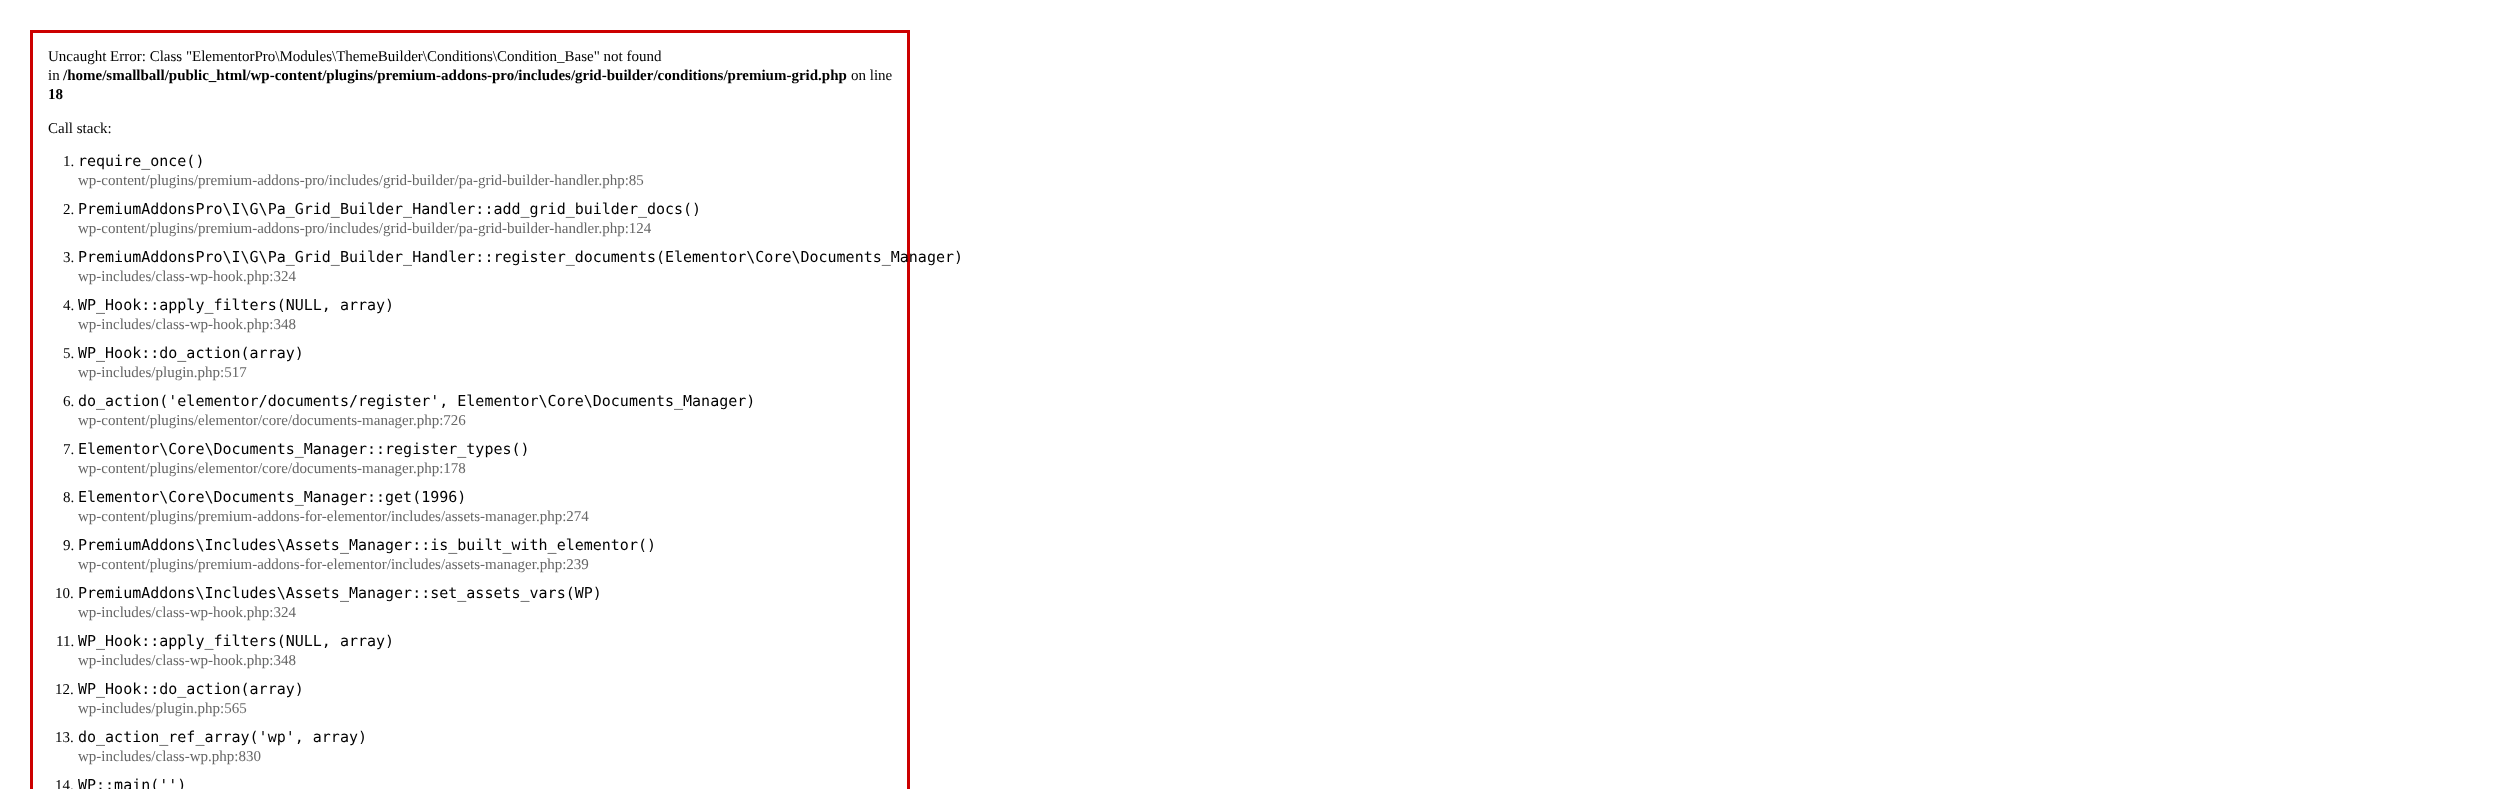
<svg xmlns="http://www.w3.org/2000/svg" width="2498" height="789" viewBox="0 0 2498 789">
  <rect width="100%" height="100%" fill="#fff"/>
  <path d="M31.5 31.5h877v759H31.5z" fill="none" stroke="#c00" stroke-width="3"/>
  <g font-family="Liberation Serif" font-size="15" fill="#000">
    <text x="48" y="61">Uncaught Error: Class "ElementorPro\Modules\ThemeBuilder\Conditions\Condition_Base" not found</text>
    <text x="48" y="80">in</text>
  </g>
  <text x="63" y="80" font-family="Liberation Serif" font-size="15" font-weight="bold" fill="#000">/home/smallball/public_html/wp-content/plugins/premium-addons-pro/includes/grid-builder/conditions/premium-grid.php</text>
  <text x="851" y="80" font-family="Liberation Serif" font-size="15" fill="#000">on line</text>
  <text x="48" y="99" font-family="Liberation Serif" font-size="15" font-weight="bold" fill="#000">18</text>
  <g font-family="Liberation Serif" font-size="15" fill="#000">
    <text x="48" y="133">Call stack:</text>
    <text x="63" y="166">1.</text>
  </g>
  <text x="78" y="166" font-family="DejaVu Sans Mono" font-size="15" fill="#000">require_once()</text>
  <text x="78" y="185" font-family="Liberation Serif" font-size="15" fill="#666">wp-content/plugins/premium-addons-pro/includes/grid-builder/pa-grid-builder-handler.php:85</text>
  <text x="63" y="214" font-family="Liberation Serif" font-size="15" fill="#000">2.</text>
  <text x="78" y="214" font-family="DejaVu Sans Mono" font-size="15" fill="#000">PremiumAddonsPro\I\G\Pa_Grid_Builder_Handler::add_grid_builder_docs()</text>
  <text x="78" y="233" font-family="Liberation Serif" font-size="15" fill="#666">wp-content/plugins/premium-addons-pro/includes/grid-builder/pa-grid-builder-handler.php:124</text>
  <text x="63" y="262" font-family="Liberation Serif" font-size="15" fill="#000">3.</text>
  <text x="78" y="262" font-family="DejaVu Sans Mono" font-size="15" fill="#000">PremiumAddonsPro\I\G\Pa_Grid_Builder_Handler::register_documents(Elementor\Core\Documents_Manager)</text>
  <text x="78" y="281" font-family="Liberation Serif" font-size="15" fill="#666">wp-includes/class-wp-hook.php:324</text>
  <text x="63" y="310" font-family="Liberation Serif" font-size="15" fill="#000">4.</text>
  <text x="78" y="310" font-family="DejaVu Sans Mono" font-size="15" fill="#000">WP_Hook::apply_filters(NULL, array)</text>
  <text x="78" y="329" font-family="Liberation Serif" font-size="15" fill="#666">wp-includes/class-wp-hook.php:348</text>
  <text x="63" y="358" font-family="Liberation Serif" font-size="15" fill="#000">5.</text>
  <text x="78" y="358" font-family="DejaVu Sans Mono" font-size="15" fill="#000">WP_Hook::do_action(array)</text>
  <text x="78" y="377" font-family="Liberation Serif" font-size="15" fill="#666">wp-includes/plugin.php:517</text>
  <text x="63" y="406" font-family="Liberation Serif" font-size="15" fill="#000">6.</text>
  <text x="78" y="406" font-family="DejaVu Sans Mono" font-size="15" fill="#000">do_action('elementor/documents/register', Elementor\Core\Documents_Manager)</text>
  <text x="78" y="425" font-family="Liberation Serif" font-size="15" fill="#666">wp-content/plugins/elementor/core/documents-manager.php:726</text>
  <text x="63" y="454" font-family="Liberation Serif" font-size="15" fill="#000">7.</text>
  <text x="78" y="454" font-family="DejaVu Sans Mono" font-size="15" fill="#000">Elementor\Core\Documents_Manager::register_types()</text>
  <text x="78" y="473" font-family="Liberation Serif" font-size="15" fill="#666">wp-content/plugins/elementor/core/documents-manager.php:178</text>
  <text x="63" y="502" font-family="Liberation Serif" font-size="15" fill="#000">8.</text>
  <text x="78" y="502" font-family="DejaVu Sans Mono" font-size="15" fill="#000">Elementor\Core\Documents_Manager::get(1996)</text>
  <text x="78" y="521" font-family="Liberation Serif" font-size="15" fill="#666">wp-content/plugins/premium-addons-for-elementor/includes/assets-manager.php:274</text>
  <text x="63" y="550" font-family="Liberation Serif" font-size="15" fill="#000">9.</text>
  <text x="78" y="550" font-family="DejaVu Sans Mono" font-size="15" fill="#000">PremiumAddons\Includes\Assets_Manager::is_built_with_elementor()</text>
  <text x="78" y="569" font-family="Liberation Serif" font-size="15" fill="#666">wp-content/plugins/premium-addons-for-elementor/includes/assets-manager.php:239</text>
  <text x="55" y="598" font-family="Liberation Serif" font-size="15" fill="#000">10.</text>
  <text x="78" y="598" font-family="DejaVu Sans Mono" font-size="15" fill="#000">PremiumAddons\Includes\Assets_Manager::set_assets_vars(WP)</text>
  <text x="78" y="617" font-family="Liberation Serif" font-size="15" fill="#666">wp-includes/class-wp-hook.php:324</text>
  <text x="56" y="646" font-family="Liberation Serif" font-size="15" fill="#000">11.</text>
  <text x="78" y="646" font-family="DejaVu Sans Mono" font-size="15" fill="#000">WP_Hook::apply_filters(NULL, array)</text>
  <text x="78" y="665" font-family="Liberation Serif" font-size="15" fill="#666">wp-includes/class-wp-hook.php:348</text>
  <text x="55" y="694" font-family="Liberation Serif" font-size="15" fill="#000">12.</text>
  <text x="78" y="694" font-family="DejaVu Sans Mono" font-size="15" fill="#000">WP_Hook::do_action(array)</text>
  <text x="78" y="713" font-family="Liberation Serif" font-size="15" fill="#666">wp-includes/plugin.php:565</text>
  <text x="55" y="742" font-family="Liberation Serif" font-size="15" fill="#000">13.</text>
  <text x="78" y="742" font-family="DejaVu Sans Mono" font-size="15" fill="#000">do_action_ref_array('wp', array)</text>
  <text x="78" y="761" font-family="Liberation Serif" font-size="15" fill="#666">wp-includes/class-wp.php:830</text>
  <text x="55" y="790" font-family="Liberation Serif" font-size="15" fill="#000">14.</text>
  <text x="78" y="790" font-family="DejaVu Sans Mono" font-size="15" fill="#000">WP::main('')</text>
</svg>
